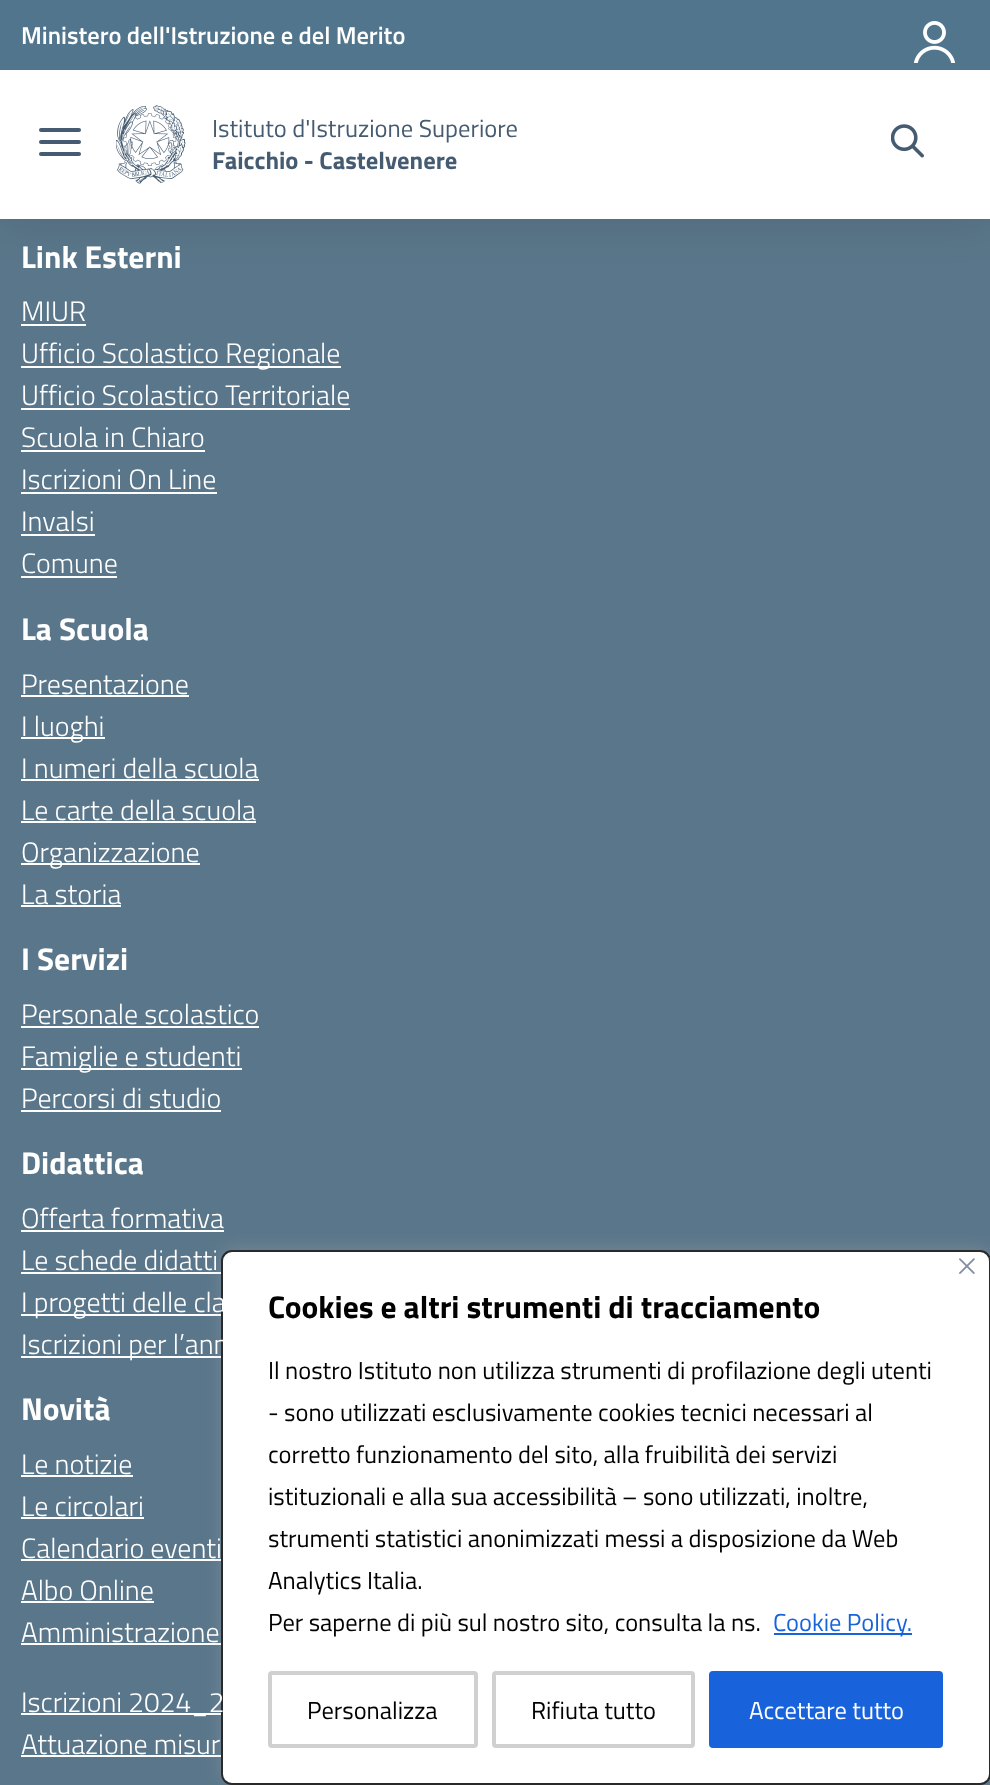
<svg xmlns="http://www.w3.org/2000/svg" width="990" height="1785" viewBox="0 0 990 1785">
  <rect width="100%" height="100%" fill="#5a768a"/>
  <path d="M0 4h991v218H0z" fill="#0000001a" filter="blur(21.5px)"/>
  <path d="M0 70h990v149H0z" fill="#fff"/>
  <path d="M0 0h990v70H0z" fill="#51758d"/>
  <image x="914" y="21" width="42" height="42" href="img/1.png"/>
  <rect x="39" y="140" width="42" height="4" rx="2" fill="#455b71"/>
  <rect x="39" y="128" width="42" height="4" rx="2" fill="#455b71"/>
  <rect x="39" y="152" width="42" height="4" rx="2" fill="#455b71"/>
  <image x="116" y="105" width="70" height="79" href="img/2.png"/>
  <image x="891" y="124" width="33" height="34" href="img/3.png"/>
  <path d="M21 324h65v2H21z" fill="#fff"/>
  <path d="M21 366h320v2H21z" fill="#fff"/>
  <path d="M21 408h329v2H21z" fill="#fff"/>
  <path d="M21 450h184v2H21z" fill="#fff"/>
  <path d="M21 492h196v2H21z" fill="#fff"/>
  <path d="M21 534h74v2H21z" fill="#fff"/>
  <path d="M21 576h96v2H21z" fill="#fff"/>
  <path d="M21 695h168v2H21z" fill="#fff"/>
  <path d="M21 737h84v2H21z" fill="#fff"/>
  <path d="M21 779h238v2H21z" fill="#fff"/>
  <path d="M21 821h235v2H21z" fill="#fff"/>
  <path d="M21 863h179v2H21z" fill="#fff"/>
  <path d="M21 905h100v2H21z" fill="#fff"/>
  <path d="M21 1026h238v2H21z" fill="#fff"/>
  <path d="M21 1068h221v2H21z" fill="#fff"/>
  <path d="M21 1110h200v2H21z" fill="#fff"/>
  <path d="M21 1230h203v2H21z" fill="#fff"/>
  <path d="M21 1272h200v2H21z" fill="#fff"/>
  <path d="M21 1314h200v2H21z" fill="#fff"/>
  <path d="M21 1356h200v2H21z" fill="#fff"/>
  <path d="M21 1475h112v2H21z" fill="#fff"/>
  <path d="M21 1517h123v2H21z" fill="#fff"/>
  <path d="M21 1559h201v2H21z" fill="#fff"/>
  <path d="M21 1601h133v2H21z" fill="#fff"/>
  <path d="M21 1643h200v2H21z" fill="#fff"/>
  <path d="M21 1713h200v2H21z" fill="#fff"/>
  <path d="M21 1755h200v2H21z" fill="#fff"/>
  <rect x="221" y="1248" width="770" height="535" rx="11" fill="#acabab4d" filter="blur(9px)"/>
  <rect x="222" y="1251" width="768" height="533" rx="10" fill="#fff" stroke="#2a2a2a" stroke-width="2"/>
  <image x="959" y="1258" width="16" height="16" href="img/4.png"/>
  <path d="M774 1633h138v2H774z" fill="#1863dc"/>
  <rect x="270" y="1673" width="206" height="73" rx="2" fill="none" stroke="#d0d0d0" stroke-width="4"/>
  <rect x="494" y="1673" width="199" height="73" rx="2" fill="none" stroke="#d0d0d0" stroke-width="4"/>
  <rect x="711" y="1673" width="230" height="73" rx="2" fill="#1863dc" stroke="#1863dc" stroke-width="4"/>
  <text x="21" y="44" font-family="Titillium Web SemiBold" font-size="24.5" font-weight="600" fill="#fff">Ministero dell'Istruzione e del Merito</text>
  <text x="212" y="137" font-family="Titillium Web" font-size="24.6" fill="#455b71">Istituto d'Istruzione Superiore</text>
  <text x="212" y="169" font-family="Titillium Web" font-size="24.6" font-weight="bold" fill="#455b71">Faicchio - Castelvenere</text>
  <text x="21" y="268" font-family="Titillium Web" font-size="31.5" font-weight="bold" fill="#fff">Link Esterni</text>
  <g font-family="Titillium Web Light" font-size="28" font-weight="300" fill="#fff">
    <text x="21" y="321">MIUR</text>
    <text x="21" y="363">Ufficio Scolastico Regionale</text>
    <text x="21" y="405">Ufficio Scolastico Territoriale</text>
    <text x="21" y="447">Scuola in Chiaro</text>
    <text x="21" y="489">Iscrizioni On Line</text>
    <text x="21" y="531">Invalsi</text>
    <text x="21" y="573">Comune</text>
  </g>
  <text x="21" y="640" font-family="Titillium Web" font-size="31.5" font-weight="bold" fill="#fff">La Scuola</text>
  <g font-family="Titillium Web Light" font-size="28" font-weight="300" fill="#fff">
    <text x="21" y="694">Presentazione</text>
    <text x="21" y="736">I luoghi</text>
    <text x="21" y="778">I numeri della scuola</text>
    <text x="21" y="820">Le carte della scuola</text>
    <text x="21" y="862">Organizzazione</text>
    <text x="21" y="904">La storia</text>
  </g>
  <text x="21" y="970" font-family="Titillium Web" font-size="31.5" font-weight="bold" fill="#fff">I Servizi</text>
  <g font-family="Titillium Web Light" font-size="28" font-weight="300" fill="#fff">
    <text x="21" y="1024">Personale scolastico</text>
    <text x="21" y="1066">Famiglie e studenti</text>
    <text x="21" y="1108">Percorsi di studio</text>
  </g>
  <text x="21" y="1174" font-family="Titillium Web" font-size="31.5" font-weight="bold" fill="#fff">Didattica</text>
  <g font-family="Titillium Web Light" font-size="28" font-weight="300" fill="#fff">
    <text x="21" y="1228">Offerta formativa</text>
    <text x="21" y="1270">Le schede didatti</text>
    <text x="21" y="1312">I progetti delle cla</text>
    <text x="21" y="1354">Iscrizioni per l’ann</text>
  </g>
  <text x="21" y="1420" font-family="Titillium Web" font-size="31.5" font-weight="bold" fill="#fff">Novità</text>
  <g font-family="Titillium Web Light" font-size="28" font-weight="300" fill="#fff">
    <text x="21" y="1474">Le notizie</text>
    <text x="21" y="1516">Le circolari</text>
    <text x="21" y="1558">Calendario eventi</text>
    <text x="21" y="1600">Albo Online</text>
    <text x="21" y="1642">Amministrazione</text>
    <text x="21" y="1712">Iscrizioni 2024_2</text>
    <text x="21" y="1754">Attuazione misur</text>
  </g>
  <text x="268" y="1318" font-family="Titillium Web" font-size="31.5" font-weight="bold" fill="#000">Cookies e altri strumenti di tracciamento</text>
  <g font-family="Titillium Web" font-size="24.5" fill="#000">
    <text x="268" y="1379">Il nostro Istituto non utilizza strumenti di profilazione degli utenti</text>
    <text x="268" y="1421">- sono utilizzati esclusivamente cookies tecnici necessari al</text>
    <text x="268" y="1463">corretto funzionamento del sito, alla fruibilità dei servizi</text>
    <text x="268" y="1505">istituzionali e alla sua accessibilità – sono utilizzati, inoltre,</text>
    <text x="268" y="1547">strumenti statistici anonimizzati messi a disposizione da Web</text>
    <text x="268" y="1589">Analytics Italia.</text>
    <text x="268" y="1631">Per saperne di più sul nostro sito, consulta la ns.</text>
  </g>
  <text x="773" y="1631" font-family="Titillium Web" font-size="24.5" fill="#1863dc">Cookie Policy.</text>
  <g font-family="Titillium Web" font-size="24.5" fill="#000">
    <text x="307" y="1719">Personalizza</text>
    <text x="531" y="1719">Rifiuta tutto</text>
  </g>
  <text x="749" y="1719" font-family="Titillium Web" font-size="24.5" fill="#fff">Accettare tutto</text>
</svg>
